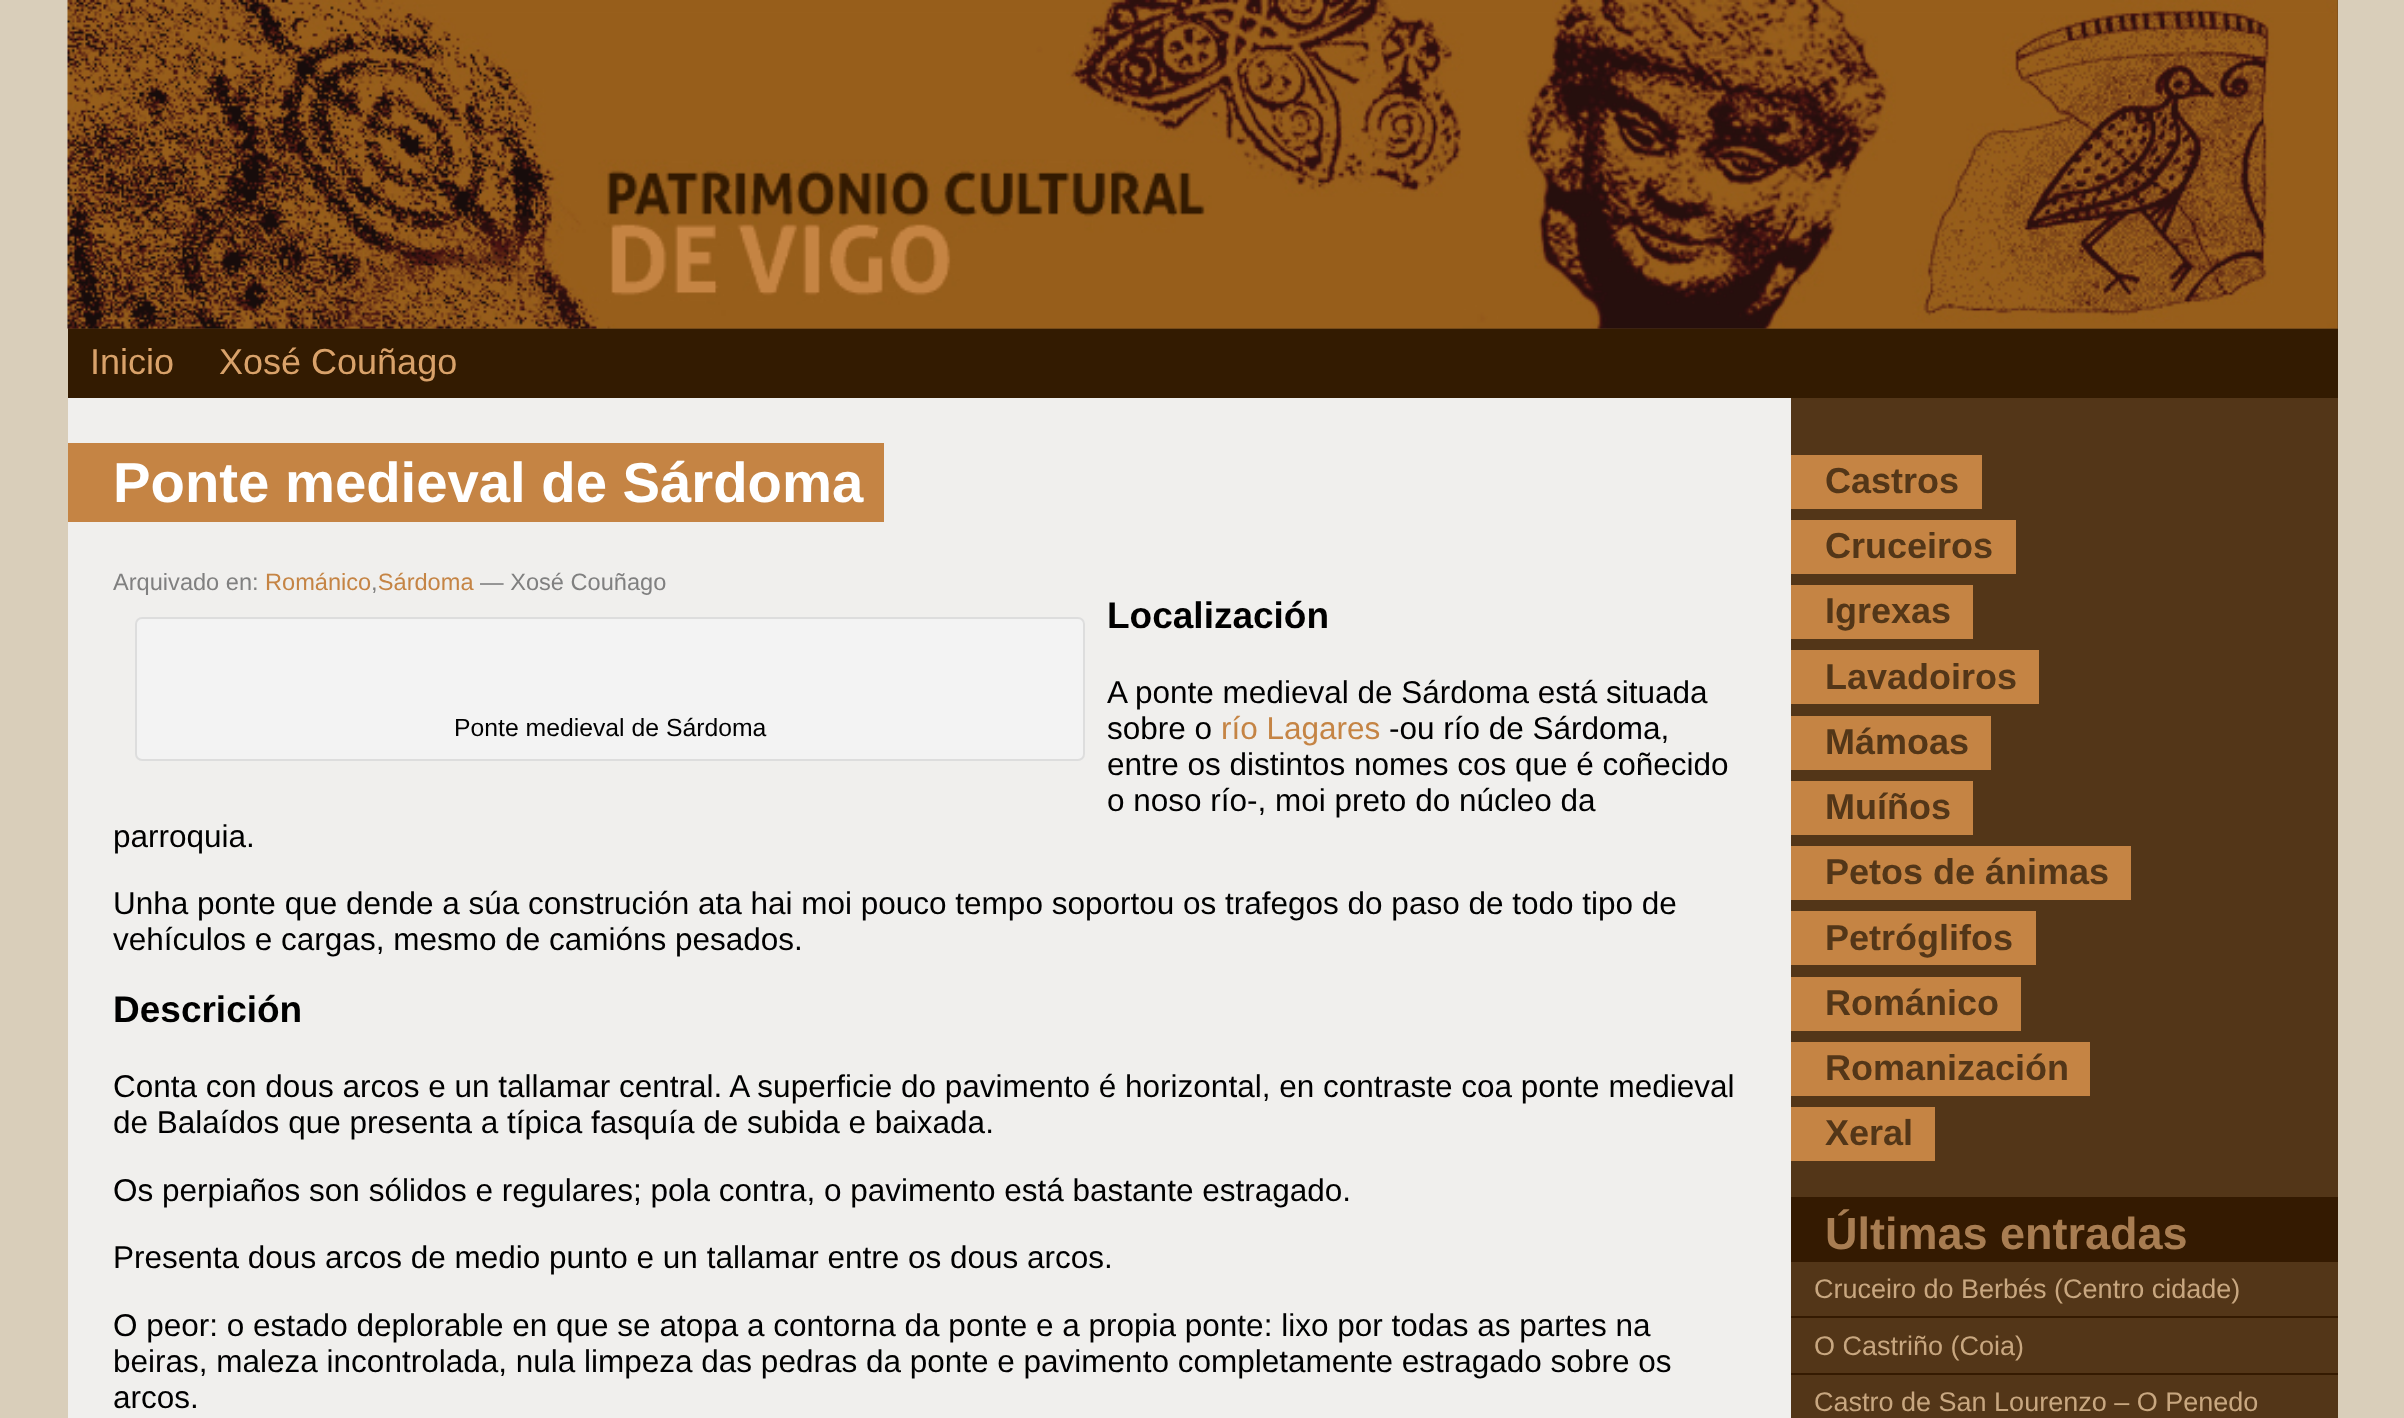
<svg xmlns="http://www.w3.org/2000/svg" width="2404" height="1418" viewBox="0 0 2404 1418">
  <rect width="100%" height="100%" fill="#d9ceba"/>
  <path d="M68 0h2270v1418H68z" fill="#533618"/>
  <image x="67" y="0" width="2271" height="329" href="img/1.png"/>
  <path d="M68 329h2270v69H68z" fill="#331b01"/>
  <path d="M68 398h1723v1020H68z" fill="#f0efed"/>
  <path d="M68 443h816v79H68z" fill="#c58444"/>
  <rect x="136" y="618" width="948" height="142" rx="6" fill="#f3f3f3" stroke="#ddd" stroke-width="2"/>
  <path d="M1791 455h191v54H1791z" fill="#c58444"/>
  <path d="M1791 520h225v54H1791z" fill="#c58444"/>
  <path d="M1791 585h182v54H1791z" fill="#c58444"/>
  <path d="M1791 650h248v54H1791z" fill="#c58444"/>
  <path d="M1791 716h200v54H1791z" fill="#c58444"/>
  <path d="M1791 781h182v54H1791z" fill="#c58444"/>
  <path d="M1791 846h340v54H1791z" fill="#c58444"/>
  <path d="M1791 911h245v54H1791z" fill="#c58444"/>
  <path d="M1791 977h230v54H1791z" fill="#c58444"/>
  <path d="M1791 1042h299v54H1791z" fill="#c58444"/>
  <path d="M1791 1107h144v54H1791z" fill="#c58444"/>
  <path d="M1791 1197h547v65H1791z" fill="#341a01"/>
  <path d="M1791 1316h547v2H1791z" fill="#341a01"/>
  <path d="M1791 1373h547v2H1791z" fill="#341a01"/>
  <g font-family="Liberation Sans" font-size="36" fill="#d9a26a">
    <text x="90" y="374">Inicio</text>
    <text x="219" y="374">Xosé Couñago</text>
  </g>
  <text x="113" y="502" font-family="Liberation Sans" font-size="56.25" font-weight="bold" fill="#fff">Ponte medieval de Sárdoma</text>
  <text x="113" y="590" font-family="Liberation Sans" font-size="23.6" fill="#808080">Arquivado en:</text>
  <text x="265" y="590" font-family="Liberation Sans" font-size="23.6" fill="#c58444">Románico Sárdoma</text>
  <g font-family="Liberation Sans" font-size="23.6" fill="#808080">
    <text x="480" y="590">— Xosé Couñago</text>
    <text x="371" y="590">,</text>
  </g>
  <text x="1107" y="628" font-family="Liberation Sans" font-size="37" font-weight="bold" fill="#000">Localización</text>
  <g font-family="Liberation Sans" font-size="31.5" fill="#000">
    <text x="1107" y="703">A ponte medieval de Sárdoma está situada</text>
    <text x="1107" y="739">sobre o</text>
  </g>
  <text x="1221" y="739" font-family="Liberation Sans" font-size="31.5" fill="#c58444">río Lagares</text>
  <g font-family="Liberation Sans" font-size="31.5" fill="#000">
    <text x="1389" y="739">-ou río de Sárdoma,</text>
    <text x="1107" y="775">entre os distintos nomes cos que é coñecido</text>
    <text x="1107" y="811">o noso río-, moi preto do núcleo da</text>
    <text x="113" y="847">parroquia.</text>
  </g>
  <text x="454" y="736" font-family="Liberation Sans" font-size="24.75" fill="#000">Ponte medieval de Sárdoma</text>
  <g font-family="Liberation Sans" font-size="31.5" fill="#000">
    <text x="113" y="914">Unha ponte que dende a súa construción ata hai moi pouco tempo soportou os trafegos do paso de todo tipo de</text>
    <text x="113" y="950">vehículos e cargas, mesmo de camións pesados.</text>
  </g>
  <text x="113" y="1022" font-family="Liberation Sans" font-size="37" font-weight="bold" fill="#000">Descrición</text>
  <g font-family="Liberation Sans" font-size="31.5" fill="#000">
    <text x="113" y="1097">Conta con dous arcos e un tallamar central. A superficie do pavimento é horizontal, en contraste coa ponte medieval</text>
    <text x="113" y="1133">de Balaídos que presenta a típica fasquía de subida e baixada.</text>
    <text x="113" y="1201">Os perpiaños son sólidos e regulares; pola contra, o pavimento está bastante estragado.</text>
    <text x="113" y="1268">Presenta dous arcos de medio punto e un tallamar entre os dous arcos.</text>
    <text x="113" y="1336">O peor: o estado deplorable en que se atopa a contorna da ponte e a propia ponte: lixo por todas as partes na</text>
    <text x="113" y="1372">beiras, maleza incontrolada, nula limpeza das pedras da ponte e pavimento completamente estragado sobre os</text>
    <text x="113" y="1408">arcos.</text>
  </g>
  <g font-family="Liberation Sans" font-size="36" font-weight="bold" fill="#533618">
    <text x="1825" y="493">Castros</text>
    <text x="1825" y="558">Cruceiros</text>
    <text x="1825" y="623">Igrexas</text>
    <text x="1825" y="689">Lavadoiros</text>
    <text x="1825" y="754">Mámoas</text>
    <text x="1825" y="819">Muíños</text>
    <text x="1825" y="884">Petos de ánimas</text>
    <text x="1825" y="950">Petróglifos</text>
    <text x="1825" y="1015">Románico</text>
    <text x="1825" y="1080">Romanización</text>
    <text x="1825" y="1145">Xeral</text>
  </g>
  <text x="1825" y="1249" font-family="Liberation Sans" font-size="45" font-weight="bold" fill="#a87d52">Últimas entradas</text>
  <g font-family="Liberation Sans" font-size="27" fill="#c8a780">
    <text x="1814" y="1298">Cruceiro do Berbés (Centro cidade)</text>
    <text x="1814" y="1355">O Castriño (Coia)</text>
    <text x="1814" y="1411">Castro de San Lourenzo – O Penedo</text>
  </g>
</svg>
